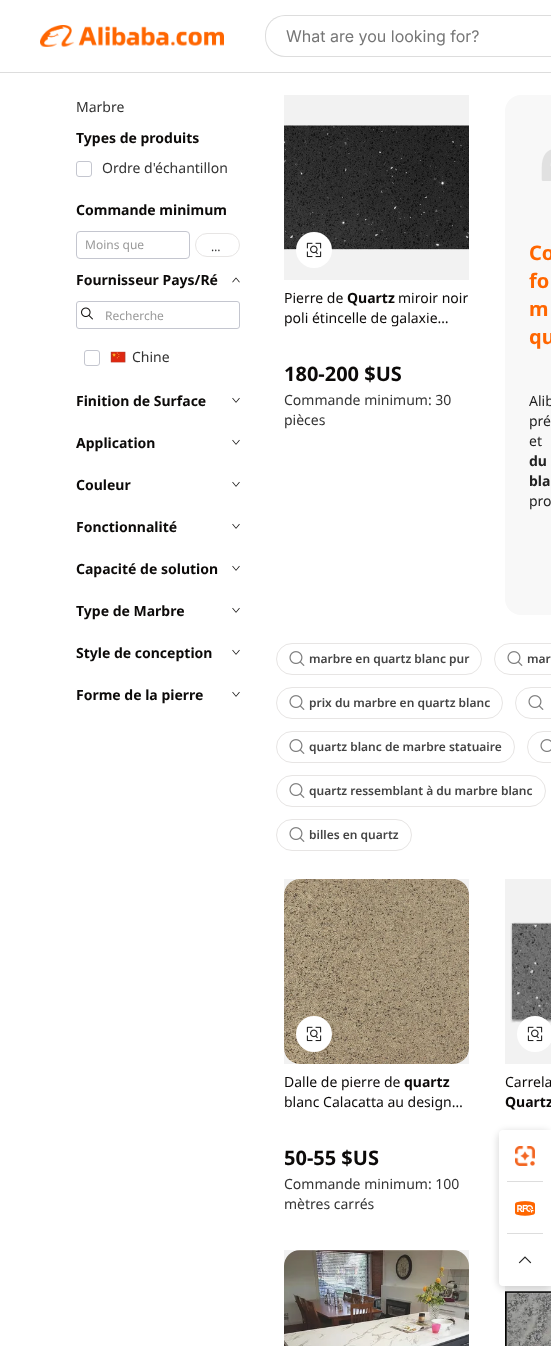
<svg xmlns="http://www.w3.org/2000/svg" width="551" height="1346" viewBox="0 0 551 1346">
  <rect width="100%" height="100%" fill="#fff"/>
  <path d="M0 72h551v1H0z" fill="#ddd"/>
  <image x="40" y="25" width="184" height="22" href="img/1.png"/>
  <rect x="265" y="15" width="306" height="42" rx="20" fill="#ddd"/>
  <rect x="266" y="16" width="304" height="40" rx="19" fill="#fff"/>
  <rect x="76.5" y="161.5" width="15" height="15" rx="2.5" fill="none" stroke="#c4c6cf"/>
  <rect x="76.5" y="231.5" width="113" height="27" rx="3.5" fill="none" stroke="#c4c6cf"/>
  <rect x="195.5" y="233.5" width="44" height="23" rx="11.5" fill="none" stroke="#e7e5e4"/>
  <image x="232" y="277" width="8" height="6" href="img/2.png"/>
  <rect x="76.5" y="301.5" width="163" height="27" rx="2.5" fill="none" stroke="#c4c6cf"/>
  <image x="81" y="307" width="12" height="13" href="img/3.png"/>
  <rect x="84.5" y="350.5" width="15" height="15" rx="2.5" fill="none" stroke="#c4c6cf"/>
  <image x="110" y="351" width="16" height="12" href="img/4.png"/>
  <image x="232" y="397" width="8" height="6" href="img/5.png"/>
  <image x="232" y="439" width="8" height="6" href="img/5.png"/>
  <image x="232" y="481" width="8" height="6" href="img/5.png"/>
  <image x="232" y="523" width="8" height="6" href="img/5.png"/>
  <image x="232" y="565" width="8" height="6" href="img/5.png"/>
  <image x="232" y="607" width="8" height="6" href="img/5.png"/>
  <image x="232" y="649" width="8" height="6" href="img/5.png"/>
  <image x="232" y="691" width="8" height="6" href="img/5.png"/>
  <image x="284" y="125" width="185" height="125" href="img/6.png"/>
  <path d="M284 95h185v185H284z" fill="#0000000d"/>
  <circle cx="314" cy="250" r="18" fill="#fff"/>
  <image x="306" y="242" width="16" height="16" href="img/7.png"/>
  <rect x="505" y="95" width="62" height="520" rx="16" fill="#f8f8f8"/>
  <image x="541" y="149" width="10" height="32" href="img/8.png"/>
  <rect x="276.5" y="643.5" width="205" height="31" rx="15.5" fill="none" stroke="#e7e5e4"/>
  <image x="289" y="651" width="16" height="15" href="img/9.png"/>
  <rect x="494.5" y="643.5" width="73" height="31" rx="15.5" fill="none" stroke="#e7e5e4"/>
  <image x="507" y="651" width="16" height="15" href="img/9.png"/>
  <rect x="276.5" y="687.5" width="226" height="31" rx="15.5" fill="none" stroke="#e7e5e4"/>
  <image x="289" y="695" width="16" height="15" href="img/9.png"/>
  <rect x="515.5" y="687.5" width="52" height="31" rx="15.5" fill="none" stroke="#e7e5e4"/>
  <image x="528" y="695" width="16" height="15" href="img/9.png"/>
  <rect x="276.5" y="731.5" width="238" height="31" rx="15.5" fill="none" stroke="#e7e5e4"/>
  <image x="289" y="739" width="16" height="15" href="img/9.png"/>
  <rect x="527.5" y="731.5" width="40" height="31" rx="15.5" fill="none" stroke="#e7e5e4"/>
  <image x="540" y="739" width="11" height="13" href="img/10.png"/>
  <rect x="276.5" y="775.5" width="269" height="31" rx="15.5" fill="none" stroke="#e7e5e4"/>
  <image x="289" y="783" width="16" height="15" href="img/9.png"/>
  <rect x="276.5" y="819.5" width="135" height="31" rx="15.5" fill="none" stroke="#e7e5e4"/>
  <image x="289" y="827" width="16" height="15" href="img/9.png"/>
  <image x="284" y="879" width="185" height="185" href="img/11.png"/>
  <path d="M284 879h185v185H284z" fill="#0000000d"/>
  <circle cx="314" cy="1034" r="18" fill="#fff"/>
  <image x="306" y="1026" width="16" height="16" href="img/7.png"/>
  <image x="510" y="922" width="41" height="101" href="img/12.png"/>
  <path d="M505 879h46v185H505z" fill="#0000000d"/>
  <circle cx="535" cy="1034" r="18" fill="#fff"/>
  <image x="527" y="1026" width="16" height="16" href="img/7.png"/>
  <image x="284" y="1250" width="185" height="96" href="img/13.png"/>
  <path d="M284 1250h185v96H284z" fill="#0000000d"/>
  <image x="505" y="1291" width="46" height="55" href="img/14.png"/>
  <path d="M505 1286h46v60H505z" fill="#0000000d"/>
  <rect x="497" y="1130" width="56" height="160" rx="10" fill="#0000001f" filter="blur(3px)"/>
  <path d="M507 1130H551V1286H507C502.5 1286 499 1282.5 499 1278V1138C499 1133.5 502.5 1130 507 1130Z" fill="#fff"/>
  <rect x="499" y="1130" width="52" height="52" rx="4" fill="#fff"/>
  <image x="515" y="1146" width="20" height="20" href="img/15.png"/>
  <path d="M507 1181h36v1H507z" fill="#ddd"/>
  <image x="515" y="1201" width="20" height="15" href="img/16.png"/>
  <path d="M507 1233h36v1H507z" fill="#ddd"/>
  <rect x="499" y="1234" width="52" height="52" rx="4" fill="#fff"/>
  <image x="518" y="1256" width="14" height="8" href="img/17.png"/>
  <text x="286" y="42" font-family="Inter" font-size="16" fill="#767676">What are you looking for?</text>
  <text x="76" y="112" font-family="Noto Sans" font-size="14" fill="#333">Marbre</text>
  <text x="76" y="143" font-family="Noto Sans" font-size="14" font-weight="bold" fill="#0c0a09">Types de produits</text>
  <text x="102" y="173" font-family="Noto Sans" font-size="14" fill="#333">Ordre d'échantillon</text>
  <text x="76" y="215" font-family="Noto Sans" font-size="14" font-weight="bold" fill="#0c0a09">Commande minimum</text>
  <text x="85" y="249" font-family="Noto Sans" font-size="12" fill="#999">Moins que</text>
  <text x="211" y="251" font-family="Noto Sans" font-size="12" fill="#333">…</text>
  <text x="76" y="285" font-family="Noto Sans" font-size="14" font-weight="bold" fill="#0c0a09">Fournisseur Pays/Ré</text>
  <text x="105" y="320" font-family="Noto Sans" font-size="12" fill="#999">Recherche</text>
  <text x="132" y="362" font-family="Noto Sans" font-size="14" fill="#333">Chine</text>
  <g font-family="Noto Sans" font-size="14" font-weight="bold" fill="#0c0a09">
    <text x="76" y="406">Finition de Surface</text>
    <text x="76" y="448">Application</text>
    <text x="76" y="490">Couleur</text>
    <text x="76" y="532">Fonctionnalité</text>
    <text x="76" y="574">Capacité de solution</text>
    <text x="76" y="616">Type de Marbre</text>
    <text x="76" y="658">Style de conception</text>
    <text x="76" y="700">Forme de la pierre</text>
  </g>
  <text x="284" y="303" font-family="Noto Sans" font-size="14" fill="#0c0a09">Pierre de</text>
  <text x="347" y="303" font-family="Noto Sans" font-size="14" font-weight="bold" fill="#0c0a09">Quartz</text>
  <g font-family="Noto Sans" font-size="14" fill="#0c0a09">
    <text x="398" y="303">miroir noir</text>
    <text x="284" y="323">poli étincelle de galaxie…</text>
  </g>
  <text x="284" y="381" font-family="Noto Sans" font-size="20" font-weight="bold" fill="#0c0a09">180-200 $US</text>
  <g font-family="Noto Sans" font-size="14" fill="#333">
    <text x="284" y="405">Commande minimum: 30</text>
    <text x="284" y="425">pièces</text>
  </g>
  <g font-family="Noto Sans" font-size="20" font-weight="bold" fill="#f60">
    <text x="529" y="260">Co</text>
    <text x="529" y="288">fo</text>
    <text x="529" y="316">m</text>
    <text x="529" y="344">qu</text>
  </g>
  <g font-family="Noto Sans" font-size="14" fill="#222">
    <text x="529" y="406">Alib</text>
    <text x="529" y="426">pré</text>
    <text x="529" y="446">et</text>
  </g>
  <g font-family="Noto Sans" font-size="14" font-weight="bold" fill="#222">
    <text x="529" y="466">du</text>
    <text x="529" y="486">bla</text>
  </g>
  <text x="529" y="506" font-family="Noto Sans" font-size="14" fill="#222">pro</text>
  <g font-family="Noto Sans" font-size="12" font-weight="600" fill="#444">
    <text x="309" y="663">marbre en quartz blanc pur</text>
    <text x="527" y="663">mar</text>
    <text x="309" y="707">prix du marbre en quartz blanc</text>
    <text x="309" y="751">quartz blanc de marbre statuaire</text>
    <text x="309" y="795">quartz ressemblant à du marbre blanc</text>
    <text x="309" y="839">billes en quartz</text>
  </g>
  <text x="284" y="1087" font-family="Noto Sans" font-size="14" fill="#0c0a09">Dalle de pierre de</text>
  <text x="404" y="1087" font-family="Noto Sans" font-size="14" font-weight="bold" fill="#0c0a09">quartz</text>
  <text x="284" y="1107" font-family="Noto Sans" font-size="14" fill="#0c0a09">blanc Calacatta au design…</text>
  <text x="284" y="1165" font-family="Noto Sans" font-size="20" font-weight="bold" fill="#0c0a09">50-55 $US</text>
  <g font-family="Noto Sans" font-size="14" fill="#333">
    <text x="284" y="1189">Commande minimum: 100</text>
    <text x="284" y="1209">mètres carrés</text>
  </g>
  <text x="505" y="1087" font-family="Noto Sans" font-size="14" fill="#0c0a09">Carrela</text>
  <text x="505" y="1107" font-family="Noto Sans" font-size="14" font-weight="bold" fill="#0c0a09">Quartz</text>
</svg>
